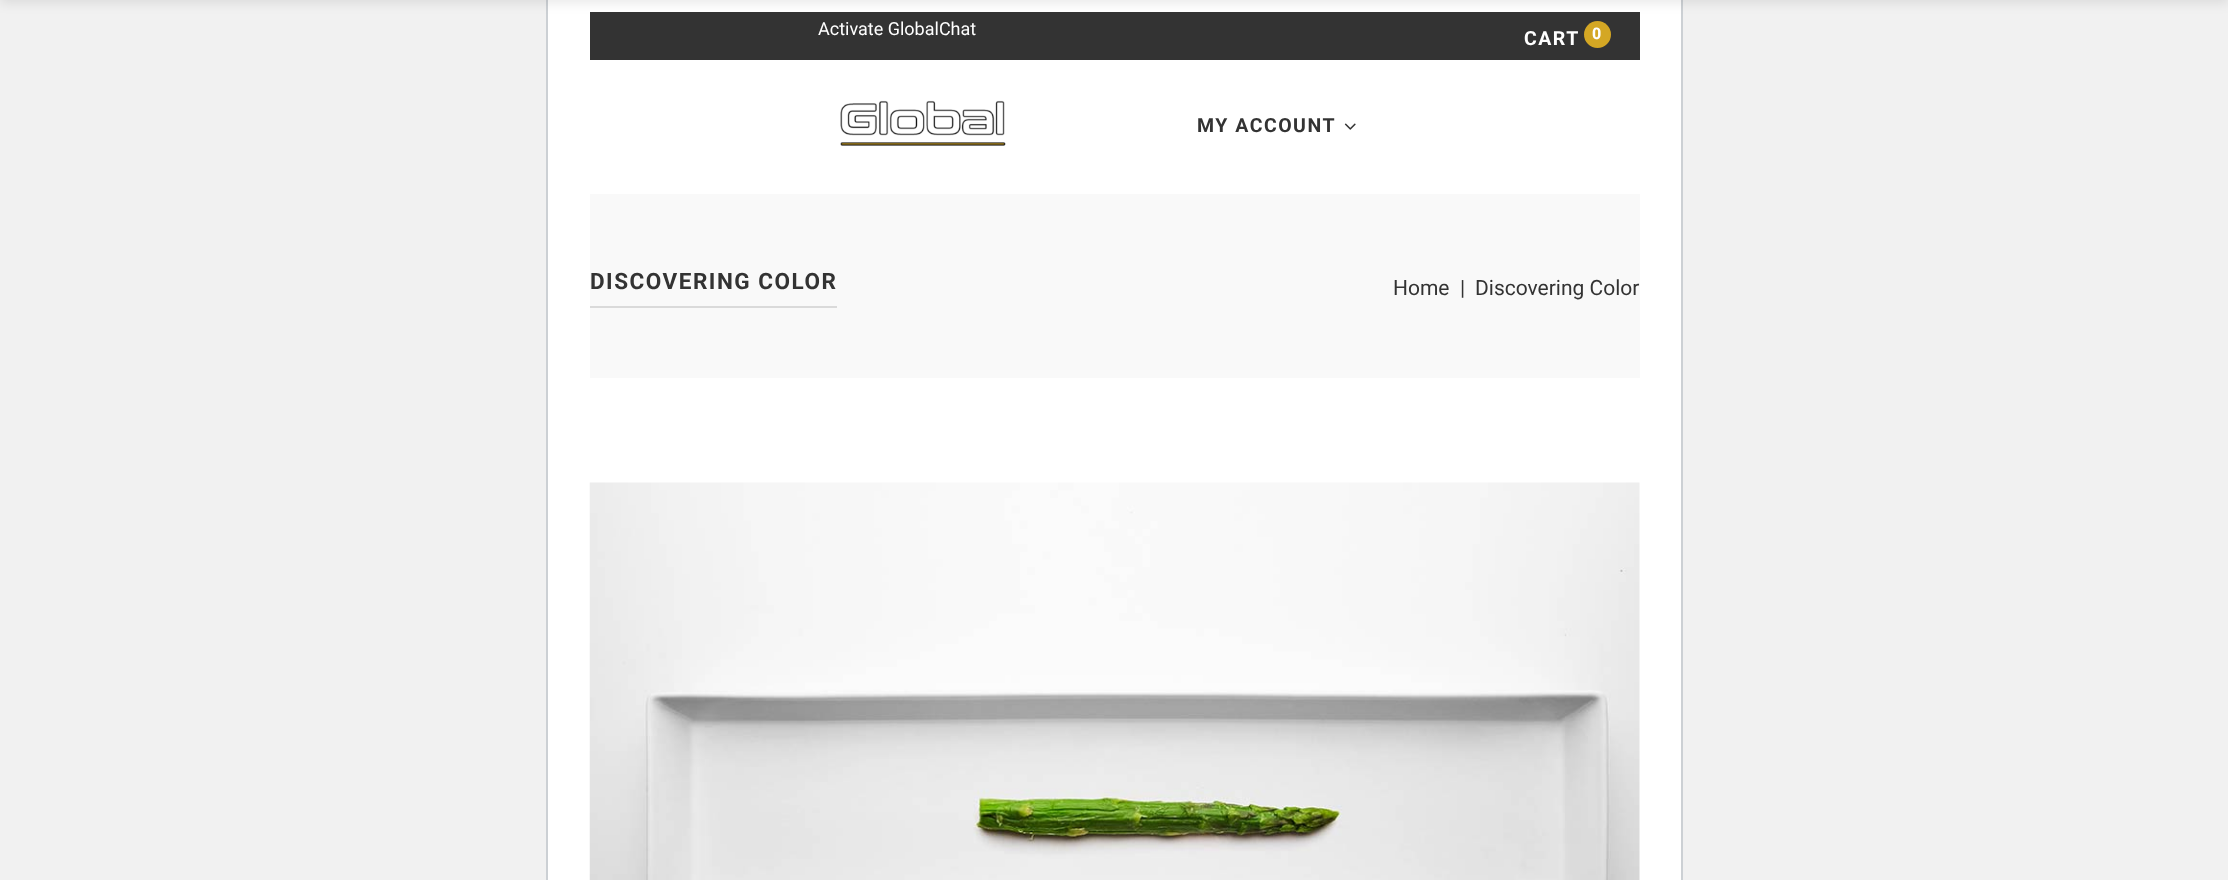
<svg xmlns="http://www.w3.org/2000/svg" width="2228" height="880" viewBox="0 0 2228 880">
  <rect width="100%" height="100%" fill="#f1f1f1"/>
  <path d="M547 -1h1135v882H547z" fill="#fff" stroke="#ccd0d4" stroke-width="2"/>
  <path d="M0 -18h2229v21H0z" fill="#00000017" filter="blur(6px)"/>
  <path d="M590 12h1050v48H590z" fill="#333"/>
  <circle cx="1597.5" cy="34.5" r="13.5" fill="#d4a724"/>
  <image x="840" y="100" width="166" height="46" href="img/1.png"/>
  <image x="1344" y="123" width="12" height="7" href="img/2.png"/>
  <path d="M590 194h1050v184H590z" fill="#f9f9f9"/>
  <path d="M590 306h247v2H590z" fill="#dadada"/>
  <image x="589" y="482" width="1051" height="398" href="img/3.png"/>
  <text x="818" y="35" font-family="Roboto" font-size="18" fill="#fff">Activate GlobalChat</text>
  <text x="1524" y="45" font-family="Roboto" font-size="19.5" font-weight="bold" letter-spacing="1.5" fill="#fff">CART</text>
  <text x="1592" y="39" font-family="Roboto" font-size="16" font-weight="800" letter-spacing="1.5" fill="#fff">0</text>
  <text x="1197" y="132" font-family="Roboto" font-size="19.5" font-weight="bold" letter-spacing="1.5" fill="#333">MY ACCOUNT</text>
  <text x="590" y="289" font-family="Roboto" font-size="22.5" font-weight="bold" letter-spacing="1.5" fill="#333">DISCOVERING COLOR</text>
  <g font-family="Roboto" font-size="21" fill="#333">
    <text x="1393" y="295">Home</text>
    <text x="1460" y="295">|</text>
    <text x="1475" y="295">Discovering Color</text>
  </g>
</svg>
